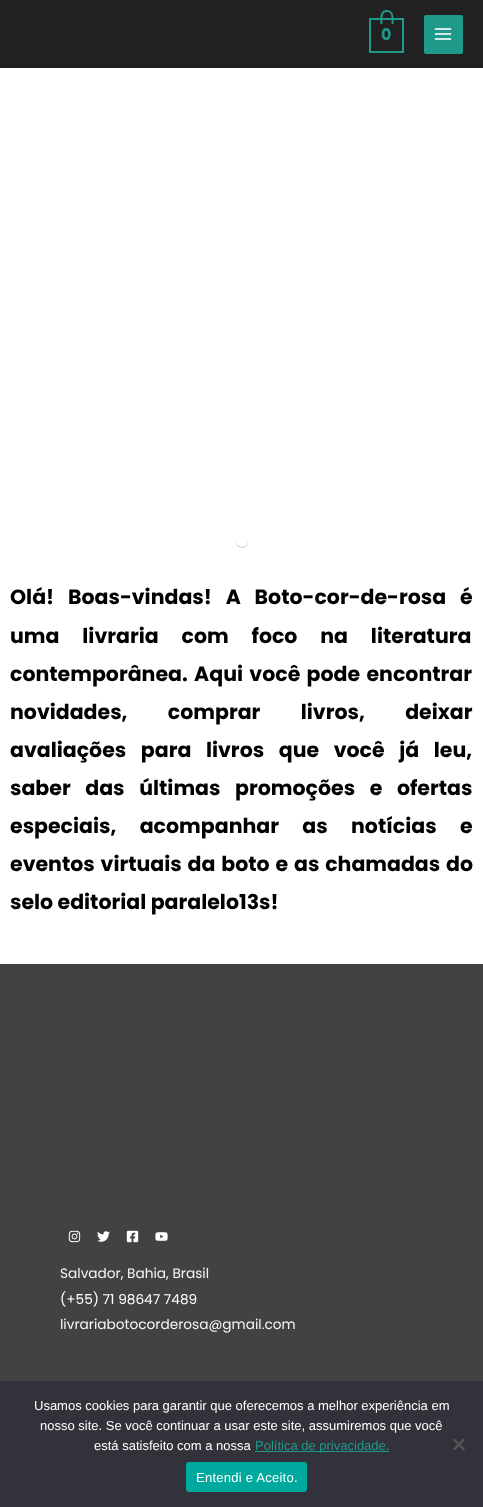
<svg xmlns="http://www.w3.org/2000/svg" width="483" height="1507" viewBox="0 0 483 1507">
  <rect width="100%" height="100%" fill="#fff"/>
  <path d="M0 0h483v68H0z" fill="#212121"/>
  <path d="M370 19h33v33H370z" fill="none" stroke="#1f998a" stroke-width="2"/>
  <path d="M387 10C394.5 10 393.5 19 393.5 24H380.5C380.5 19 379 10 387 10ZM387 12C393 12 391.5 20 391.5 24H382.5C382.5 20 381 12 387 12Z" fill="#1f998a" fill-rule="evenodd"/>
  <rect x="424" y="15" width="39" height="39" rx="2" fill="#1f998a"/>
  <image x="434" y="28" width="18" height="12" href="img/1.png"/>
  <rect x="236" y="536" width="12" height="12" rx="6" fill="#00000033" filter="blur(0.5px)"/>
  <circle cx="242" cy="541" r="5" fill="#fff" stroke="#fff" stroke-width="2"/>
  <path d="M0 964h483v417H0z" fill="#424242"/>
  <image x="68" y="1230" width="13" height="13" href="img/2.png"/>
  <image x="97" y="1231" width="13" height="11" href="img/3.png"/>
  <image x="126" y="1230" width="13" height="13" href="img/4.png"/>
  <image x="155" y="1232" width="13" height="9" href="img/5.png"/>
  <path d="M0 1381h483v126H0z" fill="#32323a"/>
  <path d="M255 1451h134v1H255z" fill="#1f998a"/>
  <path d="M463.5 1438.5L465 1440L454.5 1450.5L453 1449Z" fill="#59595d"/>
  <path d="M453 1440L454.5 1438.5L465 1449L463.5 1450.5Z" fill="#59595d"/>
  <rect x="186" y="1462" width="121" height="30" rx="3" fill="#00a99d"/>
  <text x="381" y="40" font-family="Poppins" font-size="16" font-weight="bold" fill="#1f998a">0</text>
  <g font-family="Poppins" font-size="20.5" font-weight="bold" fill="#000">
    <text x="10" y="604" word-spacing="9.5">Olá! Boas-vindas! A Boto-cor-de-rosa é</text>
    <text x="10" y="643" word-spacing="18.5">uma livraria com foco na literatura</text>
    <text x="10" y="681" word-spacing="2">contemporânea. Aqui você pode encontrar</text>
    <text x="10" y="719" word-spacing="36">novidades, comprar livros, deixar</text>
    <text x="10" y="757" word-spacing="10.25">avaliações para livros que você já leu,</text>
    <text x="10" y="795" word-spacing="10.25">saber das últimas promoções e ofertas</text>
    <text x="10" y="833" word-spacing="19">especiais, acompanhar as notícias e</text>
    <text x="10" y="871" word-spacing="1.5">eventos virtuais da boto e as chamadas do</text>
    <text x="10" y="909">selo editorial paralelo13s!</text>
  </g>
  <text x="60" y="1278" font-family="Poppins" font-size="13.7" fill="#f5f5f5">Salvador, Bahia, Brasil</text>
  <text x="60" y="1304" font-family="Poppins" font-size="13.7" fill="#fff">(+55) 71 98647 7489</text>
  <text x="60" y="1329" font-family="Poppins" font-size="13.7" fill="#f5f5f5">livrariabotocorderosa@gmail.com</text>
  <g font-family="Liberation Sans" font-size="13" fill="#fff">
    <text x="34" y="1410">Usamos cookies para garantir que oferecemos a melhor experiência em</text>
    <text x="40" y="1430">nosso site. Se você continuar a usar este site, assumiremos que você</text>
    <text x="94" y="1450">está satisfeito com a nossa</text>
  </g>
  <text x="255" y="1450" font-family="Liberation Sans" font-size="13" fill="#1f998a">Política de privacidade.</text>
  <text x="196" y="1482" font-family="Liberation Sans" font-size="13" letter-spacing="0.25" fill="#fff">Entendi e Aceito.</text>
</svg>
